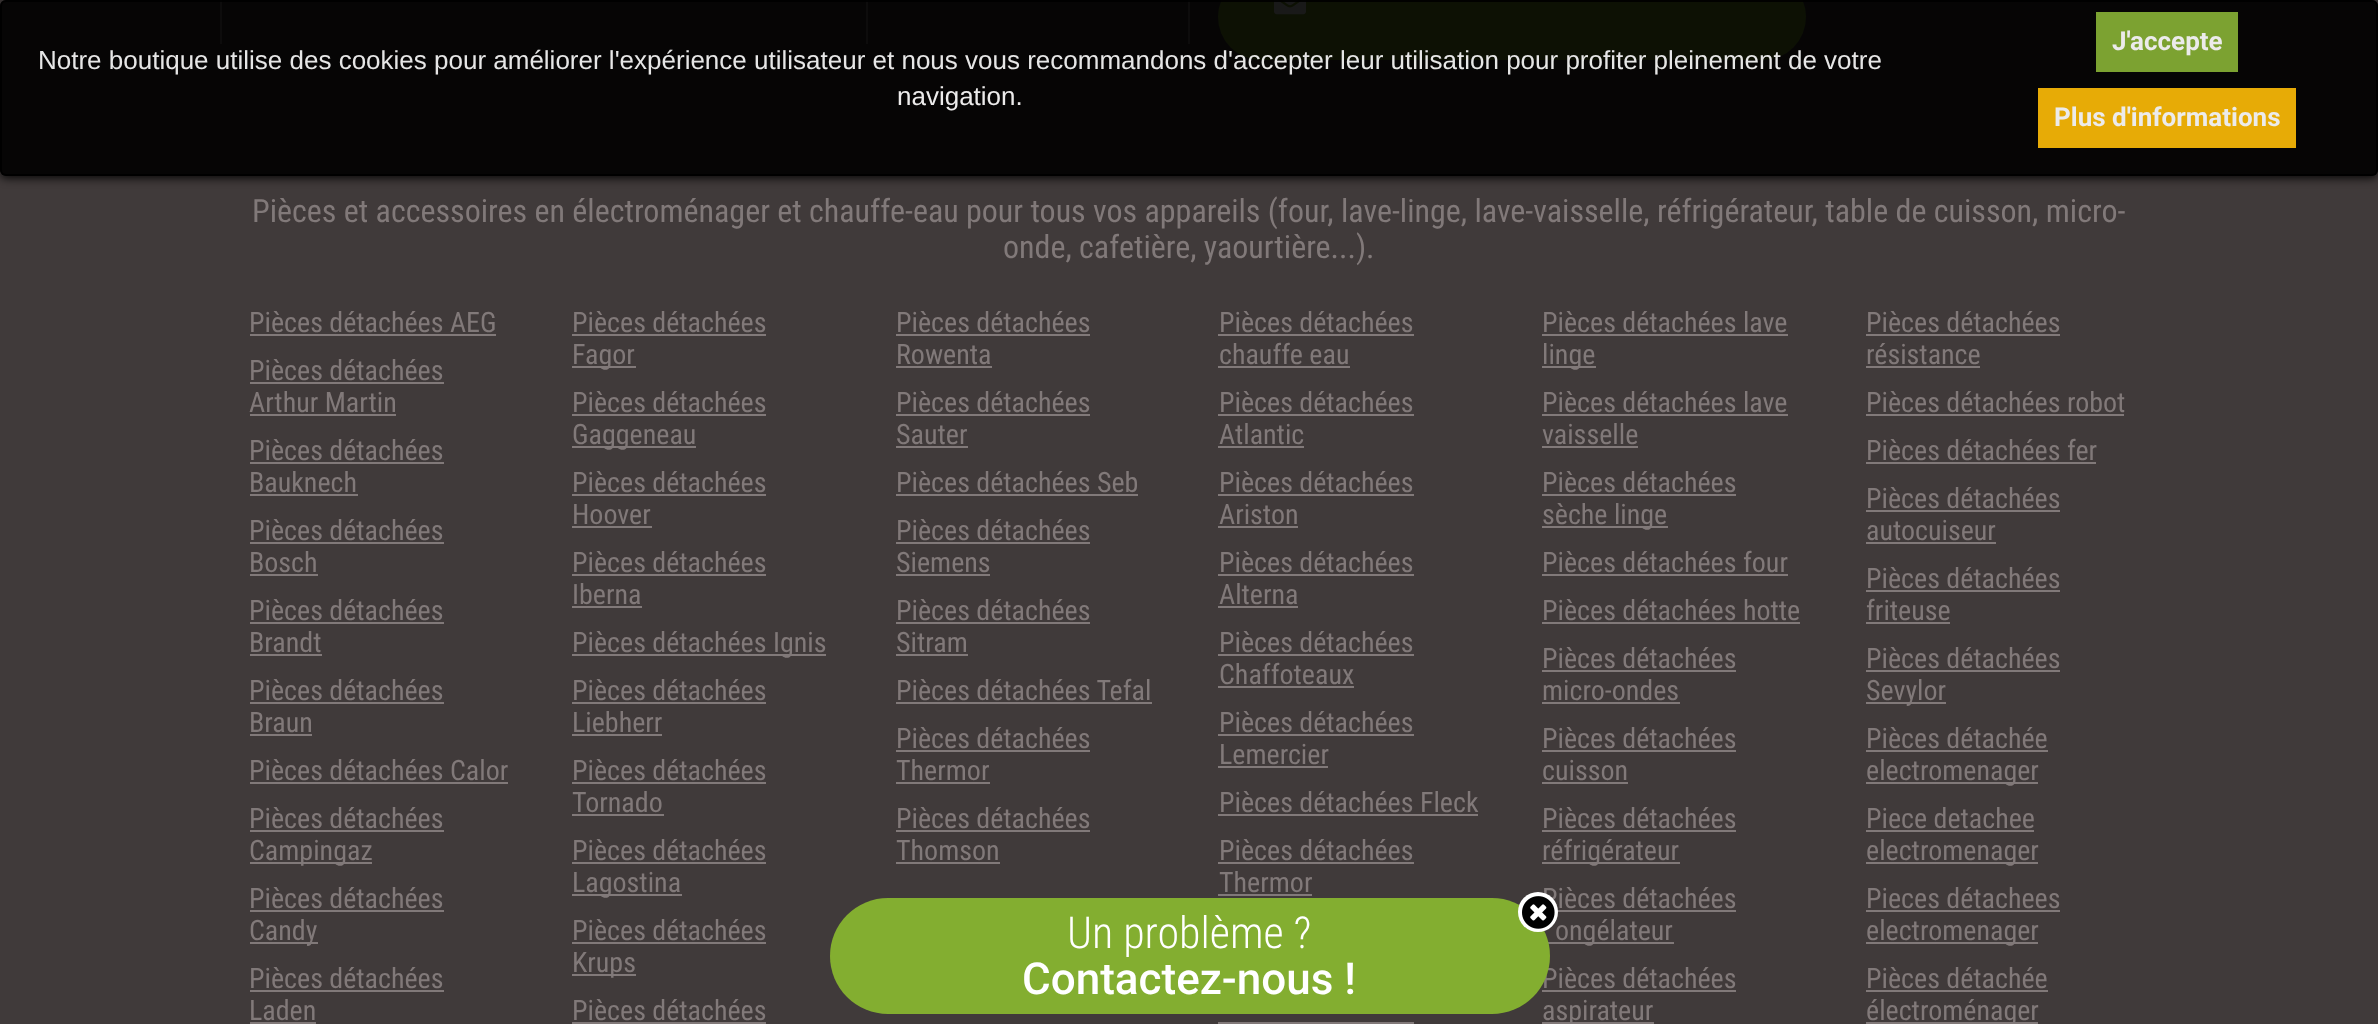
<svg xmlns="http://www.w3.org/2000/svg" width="2378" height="1024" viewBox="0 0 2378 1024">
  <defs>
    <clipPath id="clip1"><path d="M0 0H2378V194H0ZM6 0H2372C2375.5 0 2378 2.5 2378 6V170C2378 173.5 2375.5 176 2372 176H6C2.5 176 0 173.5 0 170V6C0 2.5 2.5 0 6 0Z" clip-rule="evenodd"/></clipPath>
  </defs>
  <rect width="100%" height="100%" fill="#403a3a"/>
  <path d="M220 0h2v44H220z" fill="#817979"/>
  <path d="M866 0h2v44H866z" fill="#817979"/>
  <path d="M1188 0h2v44H1188z" fill="#817979"/>
  <rect x="1218" y="-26" width="588" height="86" rx="43" fill="#83ae30"/>
  <image x="1274" y="0" width="32" height="15" href="img/2.png"/>
  <g clip-path="url(#clip1)">
    <rect y="2" width="2378" height="176" rx="6" fill="#000000e6" filter="blur(5px)"/>
  </g>
  <rect width="2378" height="176" rx="6" fill="#000000e6"/>
  <rect x="1" y="1" width="2376" height="174" rx="5" fill="none" stroke="#000000e6" stroke-width="2"/>
  <path d="M2096 12h142v60H2096z" fill="#7ca231"/>
  <path d="M2038 88h258v60H2038z" fill="#e7ab06"/>
  <path d="M250 334h246v2H250z" fill="#817979"/>
  <path d="M250 382h194v2H250z" fill="#817979"/>
  <path d="M250 414h146v2H250z" fill="#817979"/>
  <path d="M250 462h194v2H250z" fill="#817979"/>
  <path d="M250 494h108v2H250z" fill="#817979"/>
  <path d="M250 542h194v2H250z" fill="#817979"/>
  <path d="M250 574h68v2H250z" fill="#817979"/>
  <path d="M250 622h194v2H250z" fill="#817979"/>
  <path d="M250 654h72v2H250z" fill="#817979"/>
  <path d="M250 702h194v2H250z" fill="#817979"/>
  <path d="M250 734h62v2H250z" fill="#817979"/>
  <path d="M250 782h258v2H250z" fill="#817979"/>
  <path d="M250 830h194v2H250z" fill="#817979"/>
  <path d="M250 862h122v2H250z" fill="#817979"/>
  <path d="M250 910h194v2H250z" fill="#817979"/>
  <path d="M250 942h68v2H250z" fill="#817979"/>
  <path d="M250 990h194v2H250z" fill="#817979"/>
  <path d="M250 1022h66v2H250z" fill="#817979"/>
  <path d="M572 334h194v2H572z" fill="#817979"/>
  <path d="M572 366h64v2H572z" fill="#817979"/>
  <path d="M572 414h194v2H572z" fill="#817979"/>
  <path d="M572 446h124v2H572z" fill="#817979"/>
  <path d="M572 494h194v2H572z" fill="#817979"/>
  <path d="M572 526h80v2H572z" fill="#817979"/>
  <path d="M572 574h194v2H572z" fill="#817979"/>
  <path d="M572 606h70v2H572z" fill="#817979"/>
  <path d="M572 654h254v2H572z" fill="#817979"/>
  <path d="M572 702h194v2H572z" fill="#817979"/>
  <path d="M572 734h90v2H572z" fill="#817979"/>
  <path d="M572 782h194v2H572z" fill="#817979"/>
  <path d="M572 814h92v2H572z" fill="#817979"/>
  <path d="M572 862h194v2H572z" fill="#817979"/>
  <path d="M572 894h110v2H572z" fill="#817979"/>
  <path d="M572 942h194v2H572z" fill="#817979"/>
  <path d="M572 974h64v2H572z" fill="#817979"/>
  <path d="M572 1022h194v2H572z" fill="#817979"/>
  <path d="M896 334h194v2H896z" fill="#817979"/>
  <path d="M896 366h96v2H896z" fill="#817979"/>
  <path d="M896 414h194v2H896z" fill="#817979"/>
  <path d="M896 446h72v2H896z" fill="#817979"/>
  <path d="M896 494h242v2H896z" fill="#817979"/>
  <path d="M896 542h194v2H896z" fill="#817979"/>
  <path d="M896 574h94v2H896z" fill="#817979"/>
  <path d="M896 622h194v2H896z" fill="#817979"/>
  <path d="M896 654h72v2H896z" fill="#817979"/>
  <path d="M896 702h256v2H896z" fill="#817979"/>
  <path d="M896 750h194v2H896z" fill="#817979"/>
  <path d="M896 782h94v2H896z" fill="#817979"/>
  <path d="M896 830h194v2H896z" fill="#817979"/>
  <path d="M896 862h104v2H896z" fill="#817979"/>
  <path d="M1218 334h196v2H1218z" fill="#817979"/>
  <path d="M1218 366h132v2H1218z" fill="#817979"/>
  <path d="M1218 414h196v2H1218z" fill="#817979"/>
  <path d="M1218 446h86v2H1218z" fill="#817979"/>
  <path d="M1218 494h196v2H1218z" fill="#817979"/>
  <path d="M1218 526h80v2H1218z" fill="#817979"/>
  <path d="M1218 574h196v2H1218z" fill="#817979"/>
  <path d="M1218 606h80v2H1218z" fill="#817979"/>
  <path d="M1218 654h196v2H1218z" fill="#817979"/>
  <path d="M1218 686h136v2H1218z" fill="#817979"/>
  <path d="M1218 734h196v2H1218z" fill="#817979"/>
  <path d="M1218 766h110v2H1218z" fill="#817979"/>
  <path d="M1218 814h260v2H1218z" fill="#817979"/>
  <path d="M1218 862h196v2H1218z" fill="#817979"/>
  <path d="M1218 894h94v2H1218z" fill="#817979"/>
  <path d="M1218 1022h196v2H1218z" fill="#817979"/>
  <path d="M1542 334h246v2H1542z" fill="#817979"/>
  <path d="M1542 366h54v2H1542z" fill="#817979"/>
  <path d="M1542 414h246v2H1542z" fill="#817979"/>
  <path d="M1542 446h96v2H1542z" fill="#817979"/>
  <path d="M1542 494h194v2H1542z" fill="#817979"/>
  <path d="M1542 526h126v2H1542z" fill="#817979"/>
  <path d="M1542 574h246v2H1542z" fill="#817979"/>
  <path d="M1542 622h258v2H1542z" fill="#817979"/>
  <path d="M1542 670h194v2H1542z" fill="#817979"/>
  <path d="M1542 702h138v2H1542z" fill="#817979"/>
  <path d="M1542 750h194v2H1542z" fill="#817979"/>
  <path d="M1542 782h86v2H1542z" fill="#817979"/>
  <path d="M1542 830h194v2H1542z" fill="#817979"/>
  <path d="M1542 862h138v2H1542z" fill="#817979"/>
  <path d="M1557 910h179v2H1557z" fill="#817979"/>
  <path d="M1542 942h132v2H1542z" fill="#817979"/>
  <path d="M1542 990h194v2H1542z" fill="#817979"/>
  <path d="M1542 1022h112v2H1542z" fill="#817979"/>
  <path d="M1866 334h194v2H1866z" fill="#817979"/>
  <path d="M1866 366h114v2H1866z" fill="#817979"/>
  <path d="M1866 414h258v2H1866z" fill="#817979"/>
  <path d="M1866 462h230v2H1866z" fill="#817979"/>
  <path d="M1866 510h194v2H1866z" fill="#817979"/>
  <path d="M1866 542h130v2H1866z" fill="#817979"/>
  <path d="M1866 590h194v2H1866z" fill="#817979"/>
  <path d="M1866 622h84v2H1866z" fill="#817979"/>
  <path d="M1866 670h194v2H1866z" fill="#817979"/>
  <path d="M1866 702h80v2H1866z" fill="#817979"/>
  <path d="M1866 750h182v2H1866z" fill="#817979"/>
  <path d="M1866 782h172v2H1866z" fill="#817979"/>
  <path d="M1866 830h168v2H1866z" fill="#817979"/>
  <path d="M1866 862h172v2H1866z" fill="#817979"/>
  <path d="M1866 910h194v2H1866z" fill="#817979"/>
  <path d="M1866 942h172v2H1866z" fill="#817979"/>
  <path d="M1866 990h182v2H1866z" fill="#817979"/>
  <path d="M1866 1022h172v2H1866z" fill="#817979"/>
  <text x="38" y="69" font-family="Liberation Sans" font-size="26" fill="#e6e6e6">Notre boutique utilise des cookies pour améliorer l'expérience utilisateur et nous vous recommandons d'accepter leur utilisation pour profiter pleinement de votre</text>
  <text x="897" y="105" font-family="Liberation Sans" font-size="26" fill="#ecebeb">navigation.</text>
  <g font-family="Roboto" font-size="26" font-weight="bold" fill="#ecebeb">
    <text x="2112" y="50">J'accepte</text>
    <text x="2054" y="126">Plus d'informations</text>
  </g>
  <g font-family="Roboto Condensed" font-size="32" fill="#817979">
    <text x="252" y="222">Pièces et accessoires en électroménager et chauffe-eau pour tous vos appareils (four, lave-linge, lave-vaisselle, réfrigérateur, table de cuisson, micro-</text>
    <text x="1003" y="258">onde, cafetière, yaourtière...).</text>
  </g>
  <g font-family="Roboto Condensed" font-size="28" fill="#817979">
    <text x="249" y="332">Pièces détachées AEG</text>
    <text x="249" y="380">Pièces détachées</text>
    <text x="249" y="412">Arthur Martin</text>
    <text x="249" y="460">Pièces détachées</text>
    <text x="249" y="492">Bauknech</text>
    <text x="249" y="540">Pièces détachées</text>
    <text x="249" y="572">Bosch</text>
    <text x="249" y="620">Pièces détachées</text>
    <text x="249" y="652">Brandt</text>
    <text x="249" y="700">Pièces détachées</text>
    <text x="249" y="732">Braun</text>
    <text x="249" y="780">Pièces détachées Calor</text>
    <text x="249" y="828">Pièces détachées</text>
    <text x="249" y="860">Campingaz</text>
    <text x="249" y="908">Pièces détachées</text>
    <text x="249" y="940">Candy</text>
    <text x="249" y="988">Pièces détachées</text>
    <text x="249" y="1020">Laden</text>
    <text x="572" y="332">Pièces détachées</text>
    <text x="572" y="364">Fagor</text>
    <text x="572" y="412">Pièces détachées</text>
    <text x="572" y="444">Gaggeneau</text>
    <text x="572" y="492">Pièces détachées</text>
    <text x="572" y="524">Hoover</text>
    <text x="572" y="572">Pièces détachées</text>
    <text x="572" y="604">Iberna</text>
    <text x="572" y="652">Pièces détachées Ignis</text>
    <text x="572" y="700">Pièces détachées</text>
    <text x="572" y="732">Liebherr</text>
    <text x="572" y="780">Pièces détachées</text>
    <text x="572" y="812">Tornado</text>
    <text x="572" y="860">Pièces détachées</text>
    <text x="572" y="892">Lagostina</text>
    <text x="572" y="940">Pièces détachées</text>
    <text x="572" y="972">Krups</text>
    <text x="572" y="1020">Pièces détachées</text>
    <text x="896" y="332">Pièces détachées</text>
    <text x="896" y="364">Rowenta</text>
    <text x="896" y="412">Pièces détachées</text>
    <text x="896" y="444">Sauter</text>
    <text x="896" y="492">Pièces détachées Seb</text>
    <text x="896" y="540">Pièces détachées</text>
    <text x="896" y="572">Siemens</text>
    <text x="896" y="620">Pièces détachées</text>
    <text x="896" y="652">Sitram</text>
    <text x="896" y="700">Pièces détachées Tefal</text>
    <text x="896" y="748">Pièces détachées</text>
    <text x="896" y="780">Thermor</text>
    <text x="896" y="828">Pièces détachées</text>
    <text x="896" y="860">Thomson</text>
    <text x="1219" y="332">Pièces détachées</text>
    <text x="1219" y="364">chauffe eau</text>
    <text x="1219" y="412">Pièces détachées</text>
    <text x="1219" y="444">Atlantic</text>
    <text x="1219" y="492">Pièces détachées</text>
    <text x="1219" y="524">Ariston</text>
    <text x="1219" y="572">Pièces détachées</text>
    <text x="1219" y="604">Alterna</text>
    <text x="1219" y="652">Pièces détachées</text>
    <text x="1219" y="684">Chaffoteaux</text>
    <text x="1219" y="732">Pièces détachées</text>
    <text x="1219" y="764">Lemercier</text>
    <text x="1219" y="812">Pièces détachées Fleck</text>
    <text x="1219" y="860">Pièces détachées</text>
    <text x="1219" y="892">Thermor</text>
    <text x="1542" y="332">Pièces détachées lave</text>
    <text x="1542" y="364">linge</text>
    <text x="1542" y="412">Pièces détachées lave</text>
    <text x="1542" y="444">vaisselle</text>
    <text x="1542" y="492">Pièces détachées</text>
    <text x="1542" y="524">sèche linge</text>
    <text x="1542" y="572">Pièces détachées four</text>
    <text x="1542" y="620">Pièces détachées hotte</text>
    <text x="1542" y="668">Pièces détachées</text>
    <text x="1542" y="700">micro-ondes</text>
    <text x="1542" y="748">Pièces détachées</text>
    <text x="1542" y="780">cuisson</text>
    <text x="1542" y="828">Pièces détachées</text>
    <text x="1542" y="860">réfrigérateur</text>
    <text x="1542" y="908">Pièces détachées</text>
    <text x="1555" y="940">ongélateur</text>
    <text x="1542" y="988">Pièces détachées</text>
    <text x="1542" y="1020">aspirateur</text>
  </g>
  <rect x="830" y="898" width="720" height="116" rx="58" fill="#83ae30"/>
  <circle cx="1538" cy="912" r="20" fill="#fff"/>
  <image x="1522" y="896" width="33" height="33" href="img/1.png"/>
  <text x="1022" y="994" font-family="Roboto" font-size="44" font-weight="500" fill="#fff">Contactez-nous !</text>
  <text x="1067" y="948" font-family="Roboto Condensed" font-size="44" font-weight="300" fill="#fff">Un problème ?</text>
  <g font-family="Roboto Condensed" font-size="28" fill="#817979">
    <text x="1866" y="332">Pièces détachées</text>
    <text x="1866" y="364">résistance</text>
    <text x="1866" y="412">Pièces détachées robot</text>
    <text x="1866" y="460">Pièces détachées fer</text>
    <text x="1866" y="508">Pièces détachées</text>
    <text x="1866" y="540">autocuiseur</text>
    <text x="1866" y="588">Pièces détachées</text>
    <text x="1866" y="620">friteuse</text>
    <text x="1866" y="668">Pièces détachées</text>
    <text x="1866" y="700">Sevylor</text>
    <text x="1866" y="748">Pièces détachée</text>
    <text x="1866" y="780">electromenager</text>
    <text x="1866" y="828">Piece detachee</text>
    <text x="1866" y="860">electromenager</text>
    <text x="1866" y="908">Pieces détachees</text>
    <text x="1866" y="940">electromenager</text>
    <text x="1866" y="988">Pièces détachée</text>
    <text x="1866" y="1020">électroménager</text>
  </g>
</svg>
